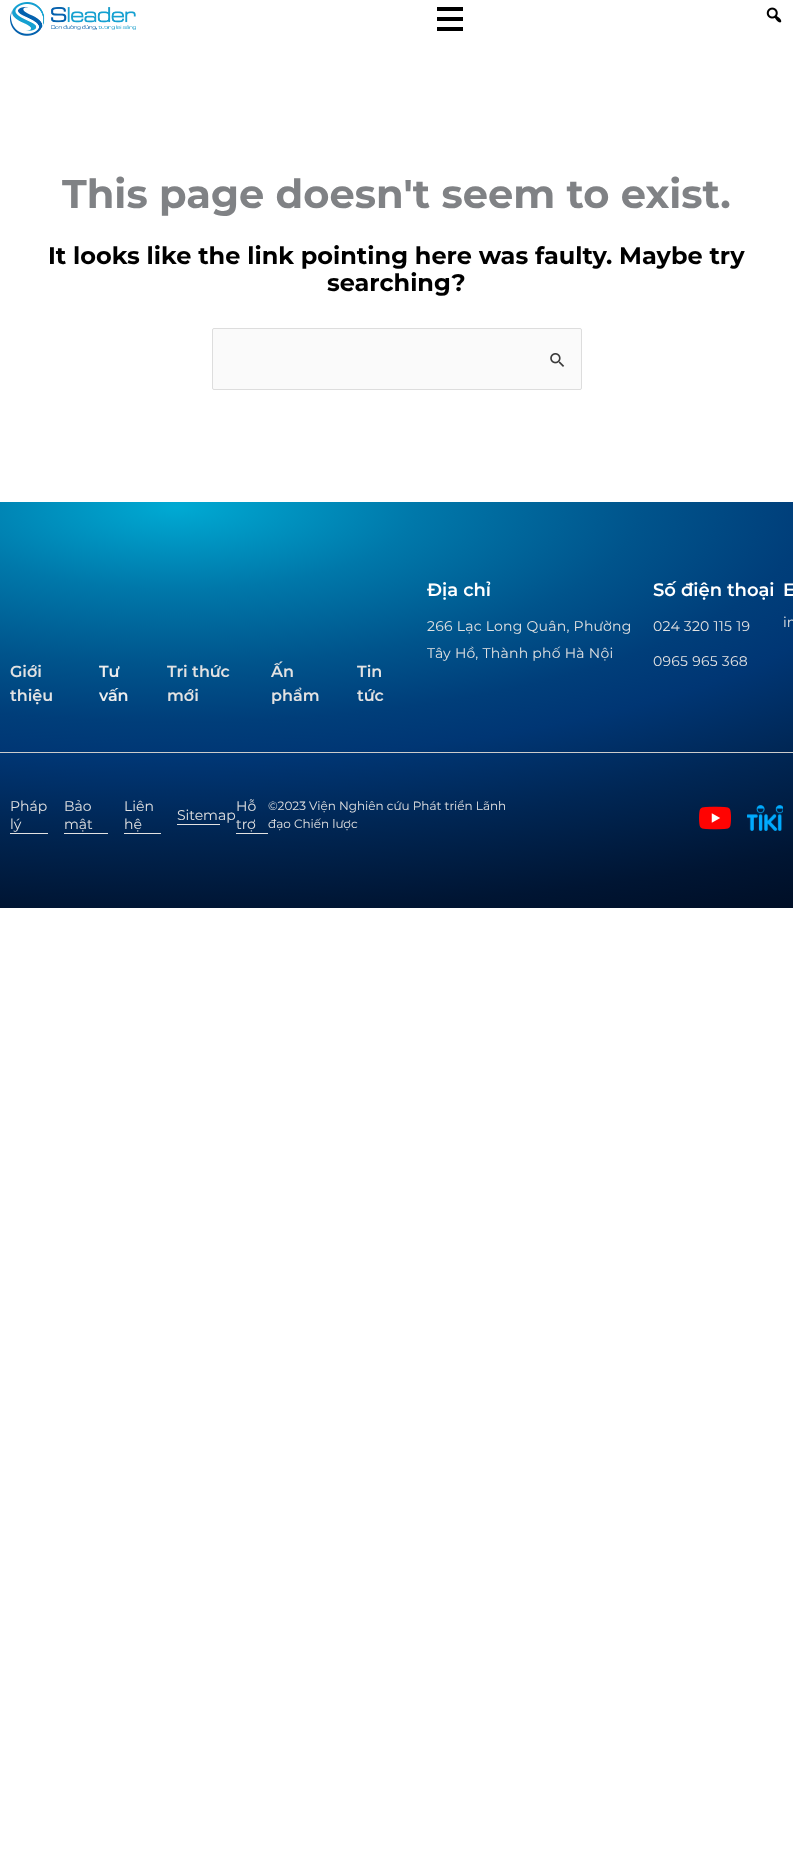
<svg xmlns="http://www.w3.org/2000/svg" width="793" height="1862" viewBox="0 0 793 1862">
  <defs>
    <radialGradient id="g1" gradientUnits="userSpaceOnUse" cx="0" cy="0" r="1" gradientTransform="matrix(1852 0 0 632 176 507)"><stop offset="0" stop-color="#00aad3"/><stop offset="0.13" stop-color="#0078aa"/><stop offset="0.25" stop-color="#00548c"/><stop offset="0.34" stop-color="#003e7a"/><stop offset="0.4" stop-color="#003674"/><stop offset="0.51" stop-color="#002654"/><stop offset="0.64" stop-color="#001533"/><stop offset="0.78" stop-color="#00091b"/><stop offset="0.9" stop-color="#00020c"/><stop offset="1" stop-color="#000008"/></radialGradient>
  </defs>
  <rect width="100%" height="100%" fill="#fff"/>
  <image x="10" y="2" width="126" height="34" href="img/1.png"/>
  <path d="M437 7h26v4H437z" fill="#000"/>
  <path d="M437 17h26v4H437z" fill="#000"/>
  <path d="M437 27h26v4H437z" fill="#000"/>
  <image x="766" y="7" width="16" height="16" href="img/2.png"/>
  <rect x="212.5" y="328.5" width="369" height="61" rx="1.5" fill="#fafafa" stroke="#ddd"/>
  <image x="550" y="353" width="15" height="14" href="img/3.png"/>
  <path d="M0 502h793v406H0z" fill="url(#g1)"/>
  <path d="M0 752h793v1H0z" fill="#cbcbcb"/>
  <path d="M10 833h38v1H10z" fill="#e2e2e2"/>
  <path d="M64 833h44v1H64z" fill="#e2e2e2"/>
  <path d="M124 833h37v1H124z" fill="#e2e2e2"/>
  <path d="M177 824h43v1H177z" fill="#e2e2e2"/>
  <path d="M236 833h32v1H236z" fill="#e2e2e2"/>
  <image x="699" y="806" width="32" height="24" href="img/4.png"/>
  <image x="747" y="805" width="36" height="26" href="img/5.png"/>
  <text x="62" y="208" font-family="Montserrat" font-size="40" font-weight="bold" fill="#808285">This page doesn't seem to exist.</text>
  <g font-family="Montserrat" font-size="24" font-weight="bold" fill="#000">
    <text x="48" y="264">It looks like the link pointing here was faulty. Maybe try</text>
    <text x="327" y="291">searching?</text>
  </g>
  <text x="427" y="596" font-family="Montserrat" font-size="18" font-weight="600" fill="#fff">Địa chỉ</text>
  <g font-family="Montserrat" font-size="14" letter-spacing="0.25" fill="#e2e2e2">
    <text x="427" y="631">266 Lạc Long Quân, Phường</text>
    <text x="427" y="658">Tây Hồ, Thành phố Hà Nội</text>
  </g>
  <text x="653" y="596" font-family="Montserrat" font-size="18" font-weight="600" fill="#fff">Số điện thoại</text>
  <g font-family="Montserrat" font-size="14" letter-spacing="0.25" fill="#e2e2e2">
    <text x="653" y="631">024 320 115 19</text>
    <text x="653" y="666">0965 965 368</text>
  </g>
  <text x="783" y="596" font-family="Montserrat" font-size="18" font-weight="600" fill="#fff">E</text>
  <text x="783" y="627" font-family="Montserrat" font-size="14" fill="#e2e2e2">in</text>
  <g font-family="Montserrat" font-size="16" font-weight="600" fill="#e2e2e2">
    <text x="10" y="677">Giới</text>
    <text x="10" y="701">thiệu</text>
  </g>
  <g font-family="Montserrat" font-size="16" font-weight="600" fill="#eee">
    <text x="99" y="677">Tư</text>
    <text x="99" y="701">vấn</text>
  </g>
  <g font-family="Montserrat" font-size="16" font-weight="600" fill="#e2e2e2">
    <text x="167" y="677">Tri thức</text>
    <text x="167" y="701">mới</text>
    <text x="271" y="677">Ấn</text>
    <text x="271" y="701">phẩm</text>
    <text x="357" y="677">Tin</text>
    <text x="357" y="701">tức</text>
  </g>
  <g font-family="Montserrat" font-size="14" fill="#e2e2e2">
    <text x="10" y="811">Pháp</text>
    <text x="10" y="829">lý</text>
    <text x="64" y="811">Bảo</text>
    <text x="64" y="829">mật</text>
    <text x="124" y="811">Liên</text>
    <text x="124" y="829">hệ</text>
    <text x="177" y="820">Sitemap</text>
    <text x="236" y="811">Hỗ</text>
    <text x="236" y="829">trợ</text>
  </g>
  <g font-family="Montserrat" font-size="12" fill="#e2e2e2">
    <text x="268" y="810">©2023 Viện Nghiên cứu Phát triển Lãnh</text>
    <text x="268" y="828">đạo Chiến lược</text>
  </g>
</svg>
